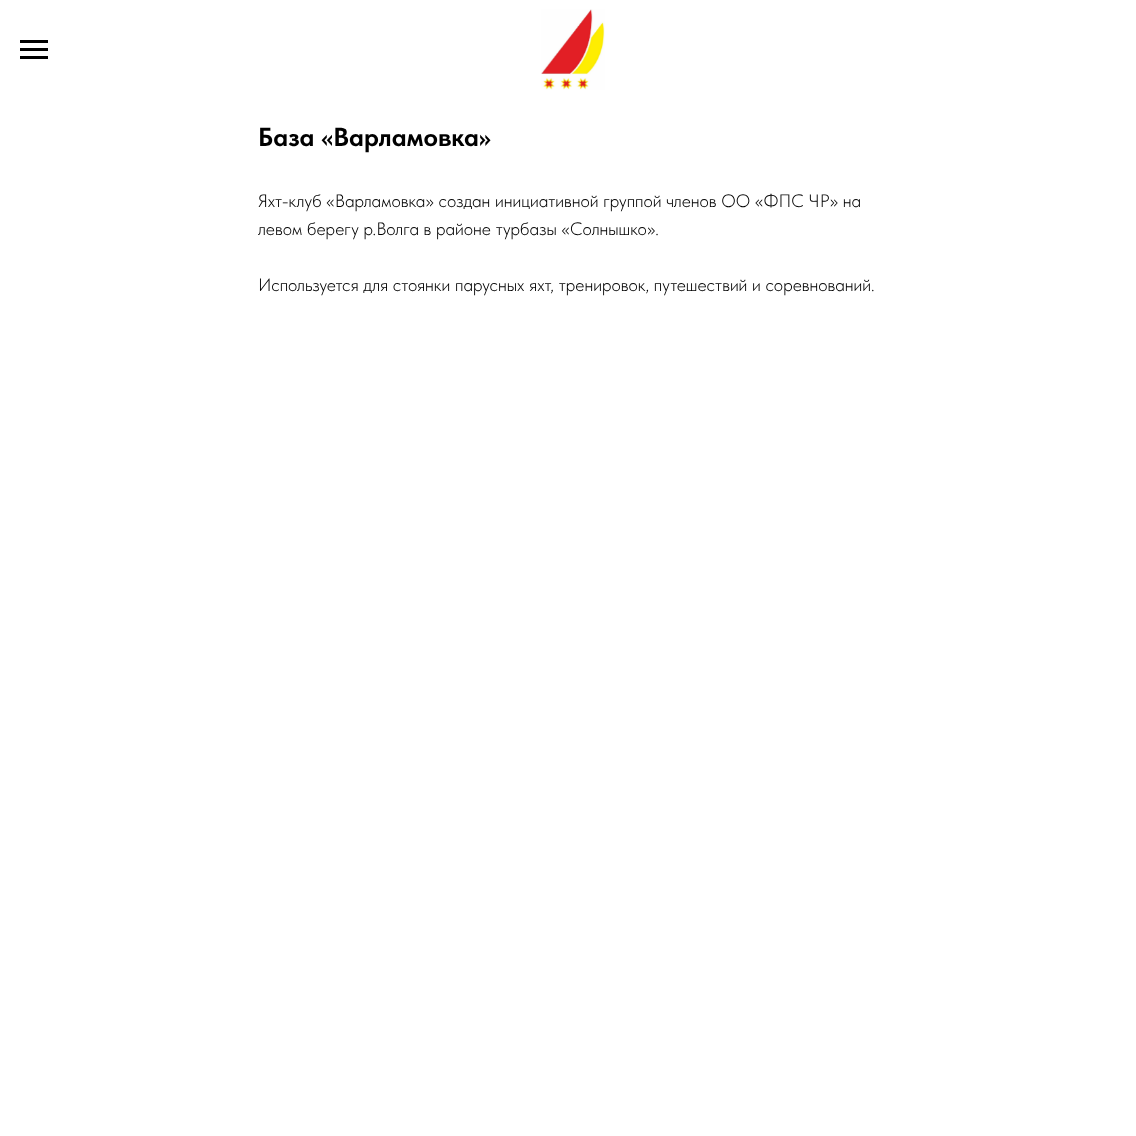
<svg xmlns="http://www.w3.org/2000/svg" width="1136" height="1136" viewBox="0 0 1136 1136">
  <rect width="100%" height="100%" fill="#fff"/>
  <path d="M20 40h28v3H20z" fill="#000"/>
  <path d="M20 48h28v3H20z" fill="#000"/>
  <path d="M20 56h28v3H20z" fill="#000"/>
  <image x="541" y="9" width="64" height="81" href="img/1.png"/>
  <text x="258" y="146" font-family="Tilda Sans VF" font-size="26" font-weight="bold" fill="#000">База «Варламовка»</text>
  <g font-family="Tilda Sans VF" font-size="18" font-weight="300" fill="#000">
    <text x="258" y="207">Яхт-клуб «Варламовка» создан инициативной группой членов ОО «ФПС ЧР» на</text>
    <text x="258" y="235">левом берегу р.Волга в районе турбазы «Солнышко».</text>
    <text x="258" y="291">Используется для стоянки парусных яхт, тренировок, путешествий и соревнований.</text>
  </g>
</svg>
